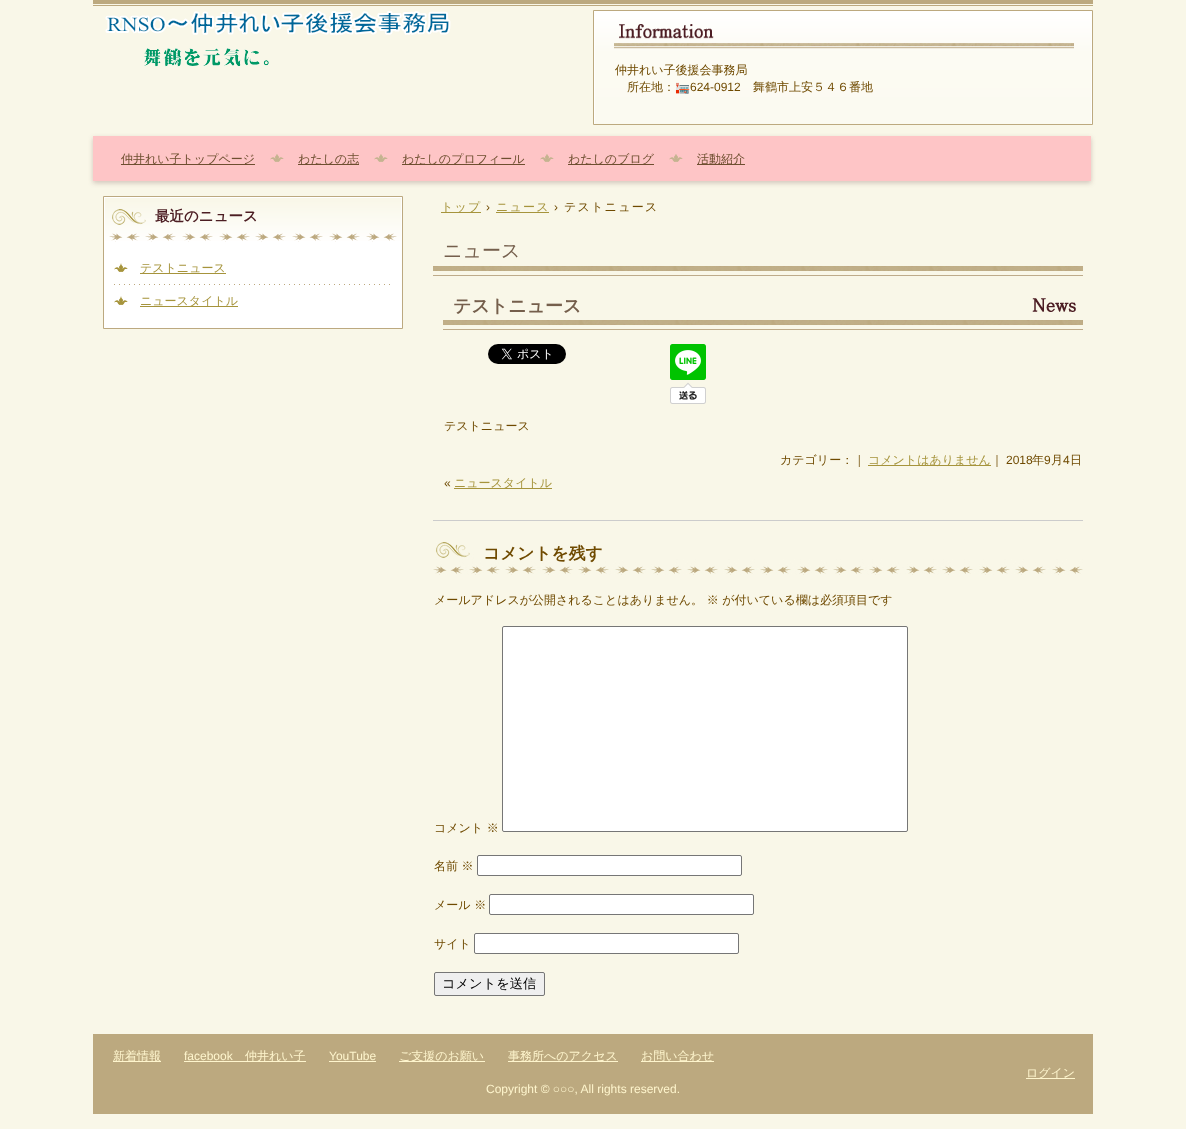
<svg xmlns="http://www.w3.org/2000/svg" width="1186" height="1129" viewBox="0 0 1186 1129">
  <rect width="100%" height="100%" fill="#f9f7e8"/>
  <image x="93" y="0" width="1000" height="6" href="img/1.png"/>
  <image x="105" y="10" width="346" height="57" href="img/2.png"/>
  <image x="594" y="11" width="498" height="113" href="img/3.png"/>
  <path d="M593.5 10.5h499v114H593.5z" fill="none" stroke="#bca97f"/>
  <path d="M93 138h998v45H93z" fill="#4c1d233b" filter="blur(2.5px)"/>
  <path d="M93 136h998v45H93z" fill="#fec5c6"/>
  <path d="M121 164h134v1H121z" fill="#6e4f30"/>
  <image x="270" y="154" width="14" height="8" href="img/4.png"/>
  <path d="M298 164h61v1H298z" fill="#6e4f30"/>
  <image x="374" y="154" width="14" height="8" href="img/4.png"/>
  <path d="M402 164h123v1H402z" fill="#6e4f30"/>
  <image x="540" y="154" width="14" height="8" href="img/4.png"/>
  <path d="M568 164h86v1H568z" fill="#6e4f30"/>
  <image x="669" y="154" width="14" height="8" href="img/4.png"/>
  <path d="M697 164h48v1H697z" fill="#6e4f30"/>
  <path d="M441 212h40v1H441z" fill="#a6943c"/>
  <path d="M496 212h53v1H496z" fill="#a6943c"/>
  <path d="M103.5 196.5h299v132H103.5z" fill="#fff" stroke="#bca980"/>
  <image x="105" y="198" width="296" height="44" href="img/5.png"/>
  <image x="114" y="263" width="276" height="22" href="img/6.png"/>
  <path d="M140 273h86v1H140z" fill="#a6943c"/>
  <image x="114" y="296" width="14" height="9" href="img/7.png"/>
  <path d="M140 306h98v1H140z" fill="#a6943c"/>
  <image x="433" y="266" width="650" height="10" href="img/8.png"/>
  <path d="M433 520h650v1H433z" fill="#ccc"/>
  <image x="443" y="298" width="640" height="32" href="img/9.png"/>
  <image x="488" y="344" width="78" height="20" href="img/10.png"/>
  <image x="670" y="344" width="36" height="60" href="img/11.png"/>
  <path d="M868 465h123v1H868z" fill="#a6943c"/>
  <path d="M454 488h98v1H454z" fill="#a6943c"/>
  <image x="433" y="542" width="650" height="33" href="img/12.png"/>
  <rect x="502.5" y="626.5" width="405" height="205" rx="1.5" fill="#fff" stroke="#767676"/>
  <rect x="477.5" y="855.5" width="264" height="20" rx="1.5" fill="#fff" stroke="#767676"/>
  <rect x="489.5" y="894.5" width="264" height="20" rx="1.5" fill="#fff" stroke="#767676"/>
  <rect x="474.5" y="933.5" width="264" height="20" rx="1.5" fill="#fff" stroke="#767676"/>
  <rect x="434.5" y="972.5" width="110" height="23" rx="1.5" fill="#efefef" stroke="#767676"/>
  <path d="M93 1034h1000v80H93z" fill="#bca97f"/>
  <path d="M113 1061h48v1H113z" fill="#fef5cd"/>
  <path d="M184 1061h122v1H184z" fill="#fef5cd"/>
  <path d="M329 1061h47v1H329z" fill="#fef5cd"/>
  <path d="M399 1061h86v1H399z" fill="#fef5cd"/>
  <path d="M508 1061h110v1H508z" fill="#fef5cd"/>
  <path d="M641 1061h73v1H641z" fill="#fef5cd"/>
  <path d="M1026 1078h49v1H1026z" fill="#fef5cd"/>
  <g font-family="WenQuanYi Zen Hei" font-size="12" font-weight="500" fill="#6f4a00">
    <text x="615" y="74">仲井れい子後援会事務局</text>
    <text x="627" y="91">所在地：</text>
  </g>
  <text x="675" y="91" font-family="Noto Color Emoji" font-size="12" fill="#6f4a00">🏣</text>
  <text x="690" y="91" font-family="Liberation Sans" font-size="12" fill="#6f4a00">624-0912</text>
  <text x="753" y="91" font-family="WenQuanYi Zen Hei" font-size="12" font-weight="500" fill="#6f4a00">舞鶴市上安５４６番地</text>
  <g font-family="WenQuanYi Zen Hei" font-size="12" font-weight="500" fill="#6e4f30">
    <text x="121" y="163">仲井れい子トップページ</text>
    <text x="298" y="163">わたしの志</text>
    <text x="402" y="163">わたしのプロフィール</text>
    <text x="568" y="163">わたしのブログ</text>
    <text x="697" y="163">活動紹介</text>
  </g>
  <text x="441" y="211" font-family="WenQuanYi Zen Hei" font-size="12" font-weight="500" letter-spacing="1.25" fill="#a6943c">トップ</text>
  <text x="486" y="211" font-family="Liberation Sans" font-size="12" letter-spacing="1.25" fill="#6f4a00">›</text>
  <text x="496" y="211" font-family="WenQuanYi Zen Hei" font-size="12" font-weight="500" letter-spacing="1.25" fill="#a6943c">ニュース</text>
  <text x="554" y="211" font-family="Liberation Sans" font-size="12" letter-spacing="1.25" fill="#6f4a00">›</text>
  <text x="564" y="211" font-family="WenQuanYi Zen Hei" font-size="12" font-weight="500" letter-spacing="1.25" fill="#6f4a00">テストニュース</text>
  <text x="155" y="221" font-family="WenQuanYi Zen Hei" font-size="14.5" font-weight="bold" fill="#4c1d23">最近のニュース</text>
  <g font-family="WenQuanYi Zen Hei" font-size="12" font-weight="500" fill="#a6943c">
    <text x="140" y="272">テストニュース</text>
    <text x="140" y="305">ニュースタイトル</text>
  </g>
  <text x="443" y="257" font-family="WenQuanYi Zen Hei" font-size="19" font-weight="500" fill="#755f4c">ニュース</text>
  <text x="453" y="312" font-family="WenQuanYi Zen Hei" font-size="18" font-weight="bold" fill="#755f4c">テストニュース</text>
  <g font-family="WenQuanYi Zen Hei" font-size="12" font-weight="500" fill="#6f4a00">
    <text x="444" y="430">テストニュース</text>
    <text x="780" y="464">カテゴリー：｜</text>
  </g>
  <text x="868" y="464" font-family="WenQuanYi Zen Hei" font-size="12" font-weight="500" fill="#a6943c">コメントはありません</text>
  <text x="991" y="464" font-family="WenQuanYi Zen Hei" font-size="12" font-weight="500" fill="#6f4a00">｜</text>
  <text x="1006" y="464" font-family="Liberation Sans" font-size="12" fill="#6f4a00">2018</text>
  <text x="1032" y="464" font-family="WenQuanYi Zen Hei" font-size="12" font-weight="500" fill="#6f4a00">年</text>
  <text x="1044" y="464" font-family="Liberation Sans" font-size="12" fill="#6f4a00">9</text>
  <text x="1051" y="464" font-family="WenQuanYi Zen Hei" font-size="12" font-weight="500" fill="#6f4a00">月</text>
  <text x="1063" y="464" font-family="Liberation Sans" font-size="12" fill="#6f4a00">4</text>
  <text x="1070" y="464" font-family="WenQuanYi Zen Hei" font-size="12" font-weight="500" fill="#6f4a00">日</text>
  <text x="444" y="487" font-family="Liberation Sans" font-size="12" fill="#6f4a00">«</text>
  <text x="454" y="487" font-family="WenQuanYi Zen Hei" font-size="12" font-weight="500" fill="#a6943c">ニュースタイトル</text>
  <text x="483" y="559" font-family="WenQuanYi Zen Hei" font-size="16.75" font-weight="bold" fill="#6f4a00">コメントを残す</text>
  <g font-family="WenQuanYi Zen Hei" font-size="12" font-weight="500" fill="#6f4a00">
    <text x="434" y="604">メールアドレスが公開されることはありません。 ※ が付いている欄は必須項目です</text>
    <text x="434" y="832">コメント ※</text>
    <text x="434" y="870">名前 ※</text>
    <text x="434" y="909">メール ※</text>
    <text x="434" y="948">サイト</text>
  </g>
  <text x="442" y="988" font-family="WenQuanYi Zen Hei" font-size="13.25" font-weight="500" fill="#000">コメントを送信</text>
  <text x="113" y="1060" font-family="WenQuanYi Zen Hei" font-size="12" font-weight="500" fill="#fef5cd">新着情報</text>
  <text x="184" y="1060" font-family="Liberation Sans" font-size="12" fill="#fef5cd">facebook</text>
  <text x="245" y="1060" font-family="WenQuanYi Zen Hei" font-size="12" font-weight="500" fill="#fef5cd">仲井れい子</text>
  <text x="329" y="1060" font-family="Liberation Sans" font-size="12" fill="#fef5cd">YouTube</text>
  <g font-family="WenQuanYi Zen Hei" font-size="12" font-weight="500" fill="#fef5cd">
    <text x="399" y="1060">ご支援のお願い</text>
    <text x="508" y="1060">事務所へのアクセス</text>
    <text x="641" y="1060">お問い合わせ</text>
    <text x="1026" y="1077">ログイン</text>
  </g>
  <text x="486" y="1093" font-family="Liberation Sans" font-size="12" fill="#fef5cd">Copyright © ○○○, All rights reserved.</text>
</svg>
